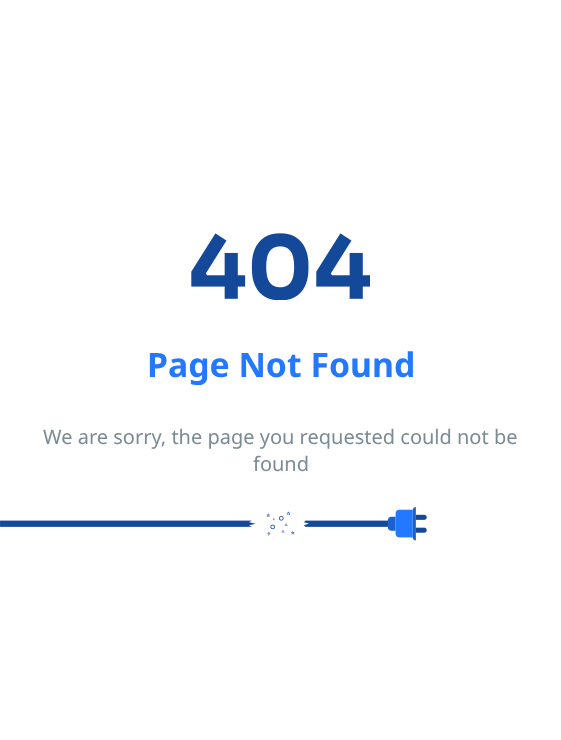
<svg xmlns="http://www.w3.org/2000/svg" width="561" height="740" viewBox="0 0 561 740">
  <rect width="100%" height="100%" fill="#fff"/>
  <image x="191" y="233" width="179" height="67" href="img/1.png"/>
  <image x="0" y="507" width="427" height="34" href="img/2.png"/>
  <text x="147" y="377" font-family="Noto Sans" font-size="33.75" font-weight="bold" fill="#2278ff">Page Not Found</text>
  <g font-family="Noto Sans" font-size="20" fill="#7a8b94">
    <text x="43" y="444">We are sorry, the page you requested could not be</text>
    <text x="253" y="471">found</text>
  </g>
</svg>
